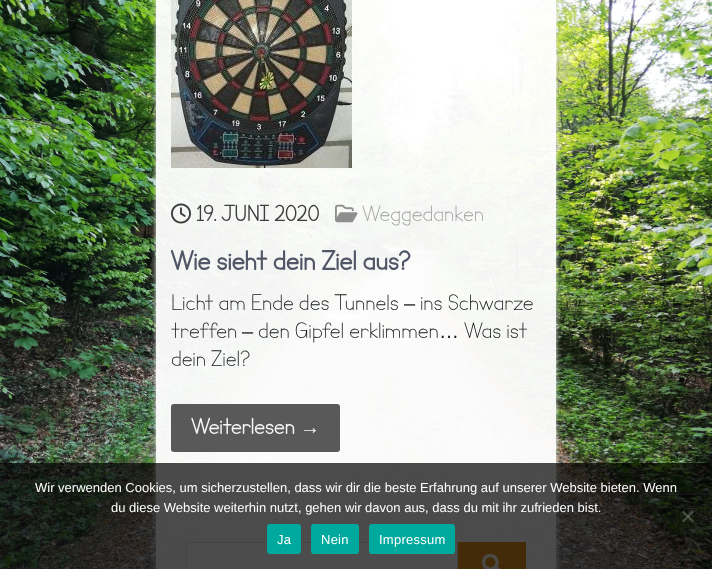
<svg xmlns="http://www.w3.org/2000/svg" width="712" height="569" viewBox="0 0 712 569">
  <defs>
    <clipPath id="clip1"><path d="M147 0H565V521H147ZM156-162H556V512H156Z" clip-rule="evenodd"/></clipPath>
    <clipPath id="clip2"><path d="M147 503H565V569H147ZM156 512H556V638H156Z" clip-rule="evenodd"/></clipPath>
    <clipPath id="clip3"><path d="M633 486H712V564H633ZM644 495H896C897 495 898 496 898 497V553C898 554 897 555 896 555H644C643 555 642 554 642 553V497C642 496 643 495 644 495Z" clip-rule="evenodd"/></clipPath>
  </defs>
  <rect width="100%" height="100%" fill="#fff"/>
  <image x="0" y="0" width="712" height="569" href="img/1.png"/>
  <g clip-path="url(#clip1)">
    <path d="M156 -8h400v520H156z" fill="#eeeeeef2" filter="blur(2.5px)"/>
  </g>
  <path d="M156 0h400v512H156z" fill="#fffffff2"/>
  <image x="171" y="0" width="181" height="168" href="img/2.png"/>
  <image x="171" y="203" width="20" height="21" href="img/3.png"/>
  <image x="335" y="204" width="23" height="19" href="img/4.png"/>
  <rect x="171" y="404" width="169" height="48" rx="3" fill="#505050f2"/>
  <g clip-path="url(#clip2)">
    <path d="M156 512h400v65H156z" fill="#eeeeeef2" filter="blur(2.5px)"/>
  </g>
  <path d="M156 512h400v57H156z" fill="#fffffff2"/>
  <path d="M186.5 542.5h271v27H186.5z" fill="#fffffff2" stroke="#dfdfdf"/>
  <path d="M458 542h68v27H458z" fill="#dd8c12f2"/>
  <image x="482" y="554" width="19" height="15" href="img/5.png"/>
  <g clip-path="url(#clip3)">
    <rect x="642" y="495" width="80" height="60" rx="2" fill="#808080" filter="blur(2.5px)"/>
  </g>
  <path d="M0 463h712v106H0z" fill="#000000b3"/>
  <path d="M692.5 510.5L694 512L683.5 522.5L682 521Z" fill="#80808080"/>
  <path d="M682 512L683.5 510.5L694 521L692.5 522.5Z" fill="#80808080"/>
  <rect x="267" y="524" width="34" height="30" rx="3" fill="#00a99d"/>
  <rect x="311" y="524" width="48" height="30" rx="3" fill="#00a99d"/>
  <rect x="369" y="524" width="86" height="30" rx="3" fill="#00a99d"/>
  <text x="196" y="221" font-family="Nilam" font-size="20" font-weight="bold" fill="#3d3d3d">19. JUNI 2020</text>
  <text x="362" y="221" font-family="Nilam" font-size="20" fill="#9e9e9e">Weggedanken</text>
  <text x="171" y="270" font-family="Nilam" font-size="24" font-weight="800" fill="#515766">Wie sieht dein Ziel aus?</text>
  <text x="171" y="310" font-family="Nilam" font-size="20" fill="#17191b">Licht am Ende des Tunnels</text>
  <text x="404" y="310" font-family="Liberation Sans" font-size="20" fill="#17191b">–</text>
  <g font-family="Nilam" font-size="20" fill="#17191b">
    <text x="420" y="310">ins Schwarze</text>
    <text x="171" y="338">treffen</text>
  </g>
  <text x="242" y="338" font-family="Liberation Sans" font-size="20" fill="#17191b">–</text>
  <g font-family="Nilam" font-size="20" fill="#17191b">
    <text x="258" y="338">den Gipfel erklimmen</text>
    <text x="464" y="338">Was ist</text>
  </g>
  <text x="439" y="338" font-family="Liberation Sans" font-size="20" fill="#17191b">…</text>
  <text x="171" y="366" font-family="Nilam" font-size="20" fill="#17191b">dein Ziel?</text>
  <text x="191" y="434" font-family="Nilam" font-size="20" font-weight="bold" fill="#f7f7f7">Weiterlesen</text>
  <text x="300" y="434" font-family="Liberation Sans" font-size="20" font-weight="bold" fill="#f7f7f7">→</text>
  <g font-family="Liberation Sans" font-size="13" fill="#fff">
    <text x="35" y="492">Wir verwenden Cookies, um sicherzustellen, dass wir dir die beste Erfahrung auf unserer Website bieten. Wenn</text>
    <text x="111" y="512">du diese Website weiterhin nutzt, gehen wir davon aus, dass du mit ihr zufrieden bist.</text>
  </g>
  <g font-family="Liberation Sans" font-size="13" letter-spacing="0.25" fill="#fff">
    <text x="277" y="544">Ja</text>
    <text x="321" y="544">Nein</text>
    <text x="379" y="544">Impressum</text>
  </g>
</svg>
